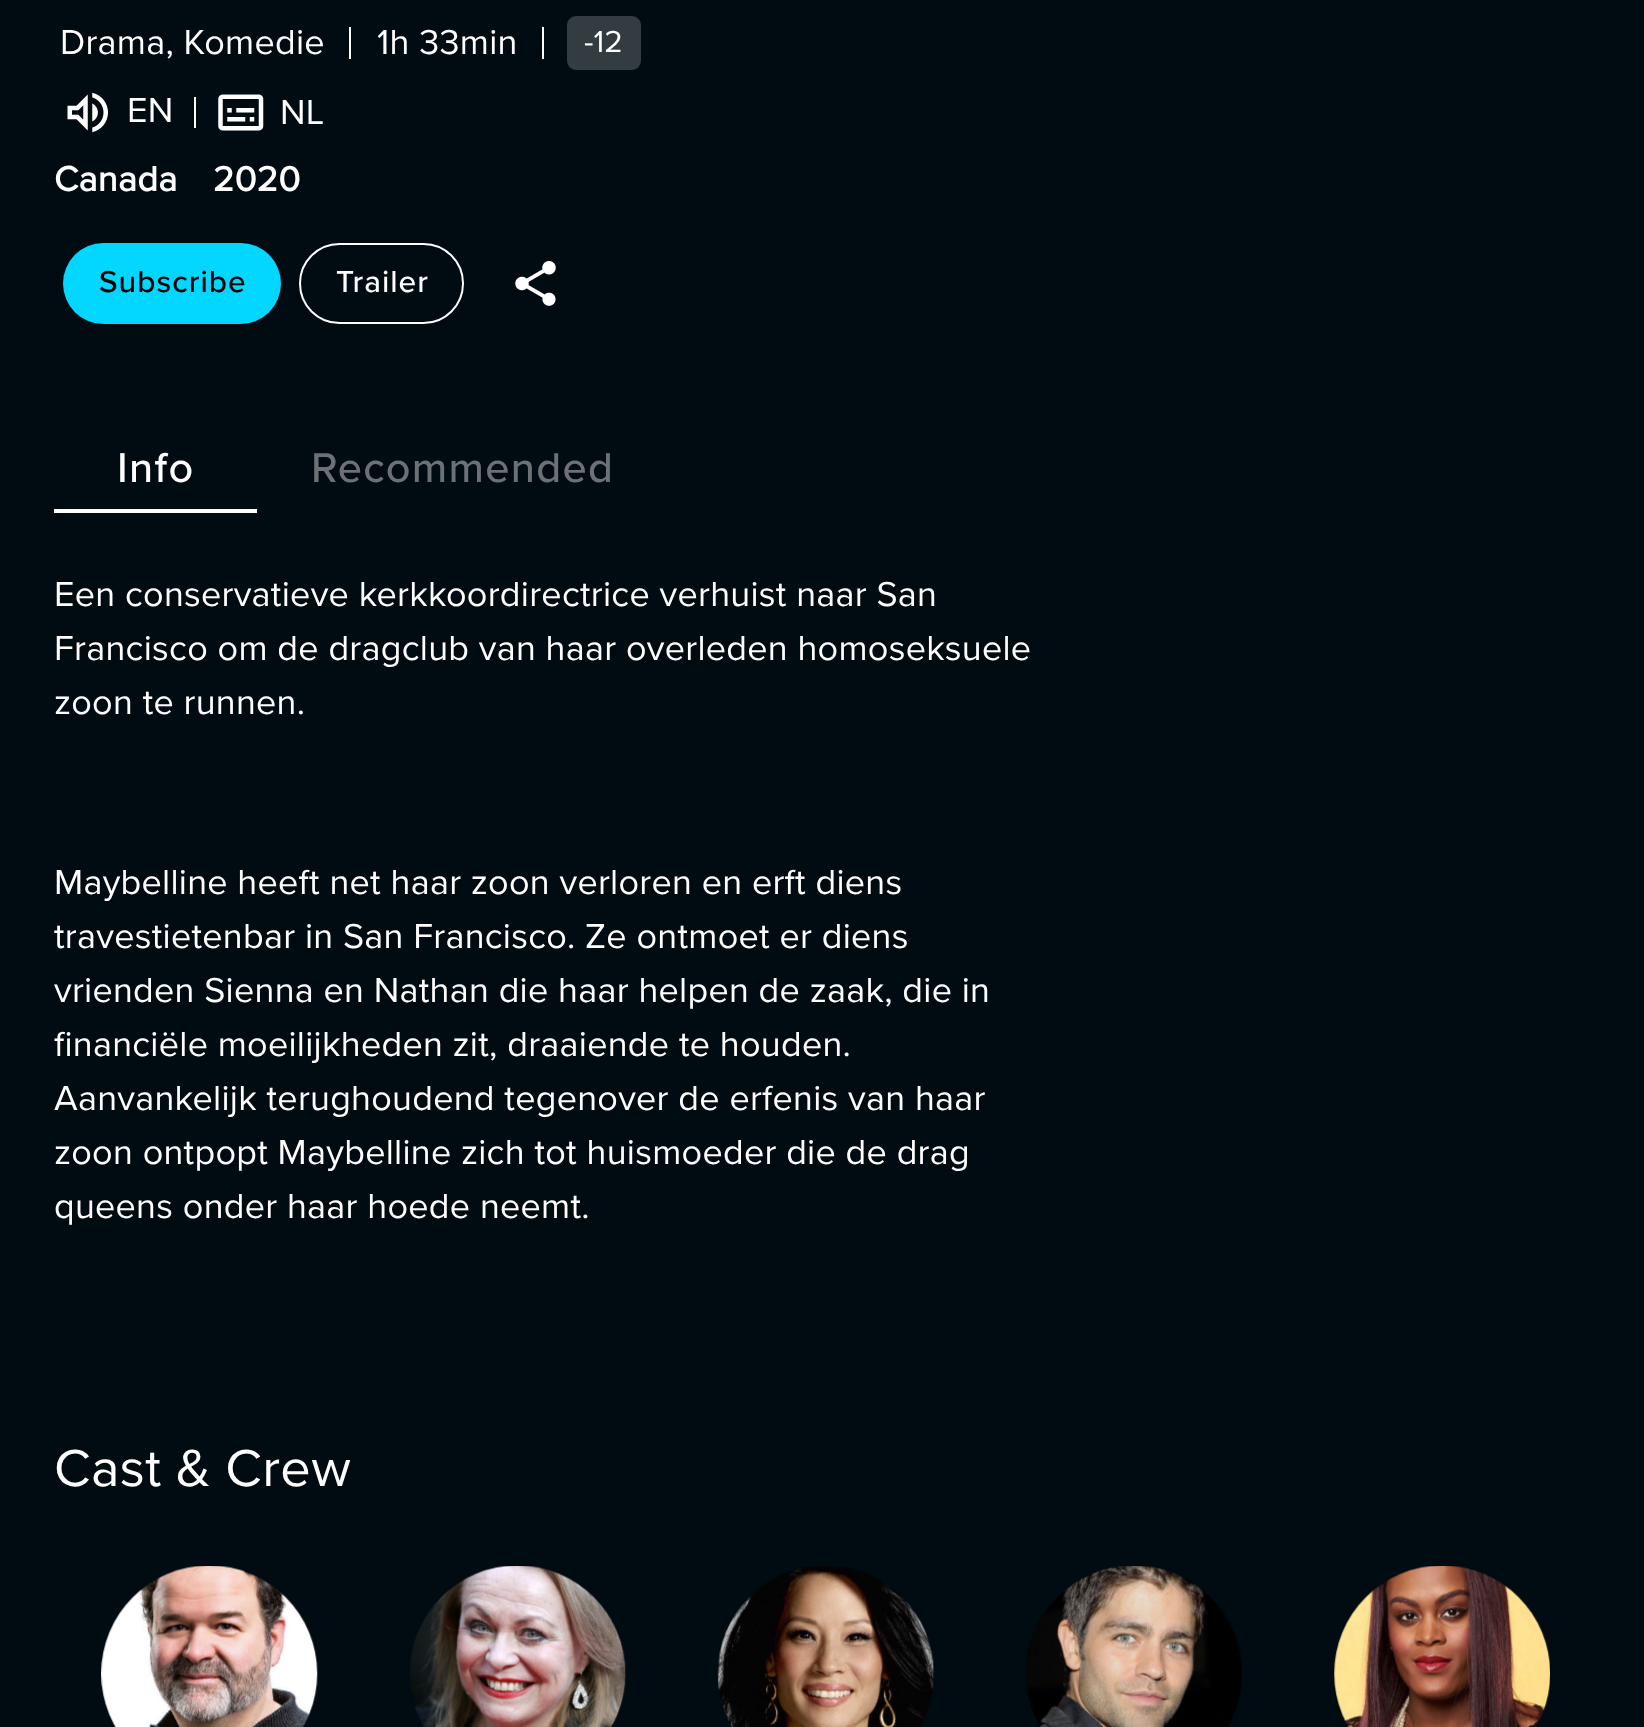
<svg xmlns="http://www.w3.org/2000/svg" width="1644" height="1727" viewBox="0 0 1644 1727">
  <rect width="100%" height="100%" fill="#000b12"/>
  <path d="M349 27h2v32H349z" fill="#fff"/>
  <path d="M542 27h2v32H542z" fill="#fff"/>
  <rect x="567" y="16" width="74" height="54" rx="9" fill="#333c41"/>
  <image x="67" y="92" width="41" height="41" href="img/1.png"/>
  <path d="M194 97h2v31H194z" fill="#fff"/>
  <image x="218" y="94" width="46" height="37" href="img/2.png"/>
  <rect x="63" y="243" width="218" height="81" rx="40.5" fill="#03d6ff"/>
  <rect x="300" y="244" width="163" height="79" rx="39.5" fill="none" stroke="#fff" stroke-width="2"/>
  <image x="515" y="261" width="41" height="45" href="img/3.png"/>
  <path d="M54 509h203v4H54z" fill="#fff"/>
  <image x="101" y="1566" width="217" height="161" href="img/4.png"/>
  <image x="409" y="1566" width="217" height="161" href="img/5.png"/>
  <image x="717" y="1566" width="218" height="161" href="img/6.png"/>
  <image x="1026" y="1566" width="216" height="161" href="img/7.png"/>
  <image x="1334" y="1566" width="216" height="161" href="img/8.png"/>
  <g font-family="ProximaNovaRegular" font-size="36" letter-spacing="0.27" fill="#fff">
    <text x="60" y="54">Drama, Komedie</text>
    <text x="377" y="54">1h 33min</text>
  </g>
  <text x="584" y="52" font-family="ProximaNovaRegular" font-size="31.5" fill="#fff">-12</text>
  <g font-family="ProximaNovaRegular" font-size="36" letter-spacing="0.27" fill="#fff">
    <text x="127" y="122">EN</text>
    <text x="280" y="124">NL</text>
  </g>
  <g font-family="ProximaNovaRegular" font-size="36" font-weight="bold" letter-spacing="0.27" fill="#fff">
    <text x="54" y="191">Canada</text>
    <text x="213" y="191">2020</text>
  </g>
  <text x="99" y="292" font-family="Proxima Nova" font-size="31.5" font-weight="500" letter-spacing="1" fill="#000">Subscribe</text>
  <text x="336" y="292" font-family="Proxima Nova" font-size="31.5" font-weight="500" letter-spacing="1" fill="#fff">Trailer</text>
  <text x="117" y="482" font-family="Proxima Nova" font-size="43.25" font-weight="500" letter-spacing="1.25" fill="#fff">Info</text>
  <text x="311" y="482" font-family="Proxima Nova" font-size="43.25" font-weight="500" letter-spacing="1.25" fill="#6b7175">Recommended</text>
  <g font-family="ProximaNovaRegular" font-size="36" letter-spacing="0.27" fill="#fff">
    <text x="54" y="606">Een conservatieve kerkkoordirectrice verhuist naar San</text>
    <text x="54" y="660">Francisco om de dragclub van haar overleden homoseksuele</text>
    <text x="54" y="714">zoon te runnen.</text>
    <text x="54" y="894">Maybelline heeft net haar zoon verloren en erft diens</text>
    <text x="54" y="948">travestietenbar in San Francisco. Ze ontmoet er diens</text>
    <text x="54" y="1002">vrienden Sienna en Nathan die haar helpen de zaak, die in</text>
    <text x="54" y="1056">financiële moeilijkheden zit, draaiende te houden.</text>
    <text x="54" y="1110">Aanvankelijk terughoudend tegenover de erfenis van haar</text>
    <text x="54" y="1164">zoon ontpopt Maybelline zich tot huismoeder die de drag</text>
    <text x="54" y="1218">queens onder haar hoede neemt.</text>
  </g>
  <text x="54" y="1486" font-family="ProximaNovaRegular" font-size="54" letter-spacing="0.4" fill="#fff">Cast &amp; Crew</text>
</svg>
